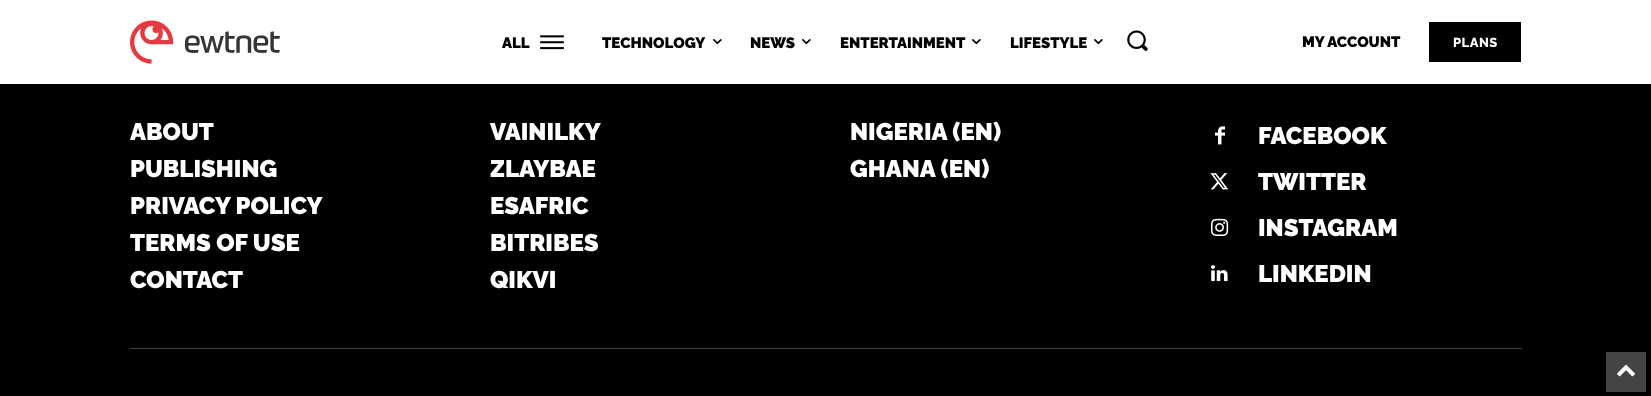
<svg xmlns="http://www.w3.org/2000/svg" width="1651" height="396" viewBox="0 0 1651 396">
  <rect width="100%" height="100%" fill="#000"/>
  <path d="M0 0h1651v84H0z" fill="#fff"/>
  <image x="130" y="20" width="150" height="44" href="img/1.png"/>
  <image x="540" y="35" width="24" height="15" href="img/2.png"/>
  <image x="713" y="39" width="9" height="6" href="img/3.png"/>
  <image x="802" y="39" width="9" height="6" href="img/3.png"/>
  <image x="972" y="39" width="9" height="6" href="img/3.png"/>
  <image x="1094" y="39" width="9" height="6" href="img/3.png"/>
  <image x="1127" y="30" width="21" height="21" href="img/4.png"/>
  <path d="M1429 22h92v40H1429z" fill="#000"/>
  <image x="1215" y="126" width="10" height="19" href="img/5.png"/>
  <image x="1210" y="173" width="19" height="17" href="img/6.png"/>
  <image x="1211" y="218" width="18" height="18" href="img/7.png"/>
  <image x="1211" y="265" width="17" height="17" href="img/8.png"/>
  <path d="M130 348h1392v1H130z" fill="#404040"/>
  <path d="M1606 352h40v40H1606z" fill="#444"/>
  <image x="1617" y="364" width="18" height="13" href="img/9.png"/>
  <g font-family="Raleway" font-size="15" font-weight="900" fill="#000">
    <text x="502" y="48">ALL</text>
    <text x="602" y="48">TECHNOLOGY</text>
    <text x="750" y="48">NEWS</text>
    <text x="840" y="48">ENTERTAINMENT</text>
    <text x="1010" y="48">LIFESTYLE</text>
    <text x="1302" y="47">MY ACCOUNT</text>
  </g>
  <text x="1453" y="47" font-family="Raleway" font-size="13" font-weight="800" letter-spacing="0.5" fill="#fff">PLANS</text>
  <g font-family="Raleway" font-size="24" font-weight="900" fill="#fff">
    <text x="130" y="140">ABOUT</text>
    <text x="130" y="177">PUBLISHING</text>
    <text x="130" y="214">PRIVACY POLICY</text>
    <text x="130" y="251">TERMS OF USE</text>
    <text x="130" y="288">CONTACT</text>
    <text x="490" y="140">VAINILKY</text>
    <text x="490" y="177">ZLAYBAE</text>
    <text x="490" y="214">ESAFRIC</text>
    <text x="490" y="251">BITRIBES</text>
    <text x="490" y="288">QIKVI</text>
    <text x="850" y="140">NIGERIA (EN)</text>
    <text x="850" y="177">GHANA (EN)</text>
    <text x="1258" y="144">FACEBOOK</text>
    <text x="1258" y="190">TWITTER</text>
    <text x="1258" y="236">INSTAGRAM</text>
    <text x="1258" y="282">LINKEDIN</text>
  </g>
</svg>
